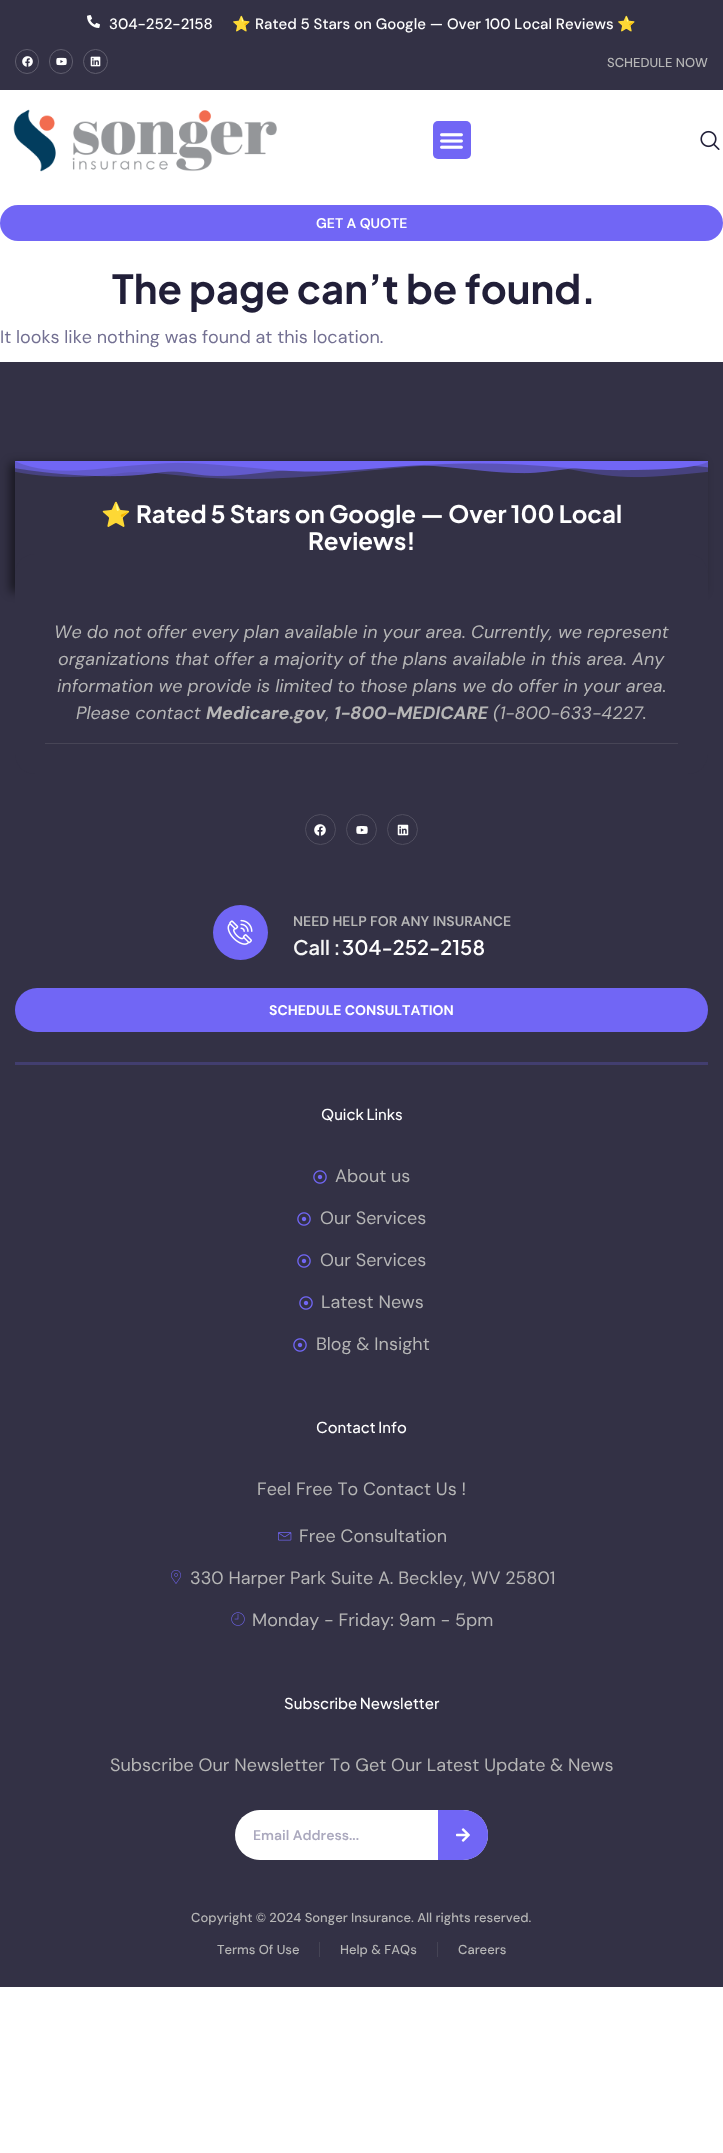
<svg xmlns="http://www.w3.org/2000/svg" width="723" height="2153" viewBox="0 0 723 2153">
  <style>*{font-kerning:none!important;font-variant-ligatures:none!important}</style>
  <defs>
    <clipPath id="clip1"><path d="M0 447H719V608H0ZM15 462H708V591H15Z" clip-rule="evenodd"/></clipPath>
  </defs>
  <rect width="100%" height="100%" fill="#fff"/>
  <path d="M0 0h723v90H0z" fill="#333145"/>
  <image x="87" y="15" width="13" height="13" href="img/1.png"/>
  <rect x="15.5" y="49.5" width="23" height="24" rx="11.5" fill="none" stroke="#605e6e"/>
  <image x="22" y="56" width="11" height="11" href="img/2.png"/>
  <rect x="49.5" y="49.5" width="23" height="24" rx="11.5" fill="none" stroke="#605e6e"/>
  <image x="56" y="57" width="11" height="9" href="img/3.png"/>
  <circle cx="95.5" cy="61.5" r="12" fill="none" stroke="#605e6e"/>
  <image x="90" y="56" width="11" height="11" href="img/4.png"/>
  <image x="13" y="109" width="264" height="63" href="img/5.png"/>
  <rect x="433" y="121" width="38" height="38" rx="5" fill="#7166f5"/>
  <image x="440" y="133" width="23" height="16" href="img/6.png"/>
  <image x="700" y="130" width="20" height="20" href="img/7.png"/>
  <rect y="205" width="723" height="36" rx="18" fill="#7166f5"/>
  <path d="M0 362h723v1625H0z" fill="#333145"/>
  <g clip-path="url(#clip1)">
    <path d="M10 463h693v129H10z" fill="#00000080" filter="blur(5px)"/>
  </g>
  <image x="15" y="461" width="693" height="18" href="img/8.png"/>
  <rect x="15" y="554" width="693" height="220" rx="20" fill="#333145"/>
  <path d="M45 743h633v1H45z" fill="#474556"/>
  <circle cx="320.5" cy="829.5" r="15" fill="none" stroke="#504e5f"/>
  <image x="314" y="824" width="12" height="12" href="img/9.png"/>
  <circle cx="361.5" cy="829.5" r="15" fill="none" stroke="#504e5f"/>
  <image x="356" y="826" width="12" height="8" href="img/10.png"/>
  <circle cx="402.5" cy="829.5" r="15" fill="none" stroke="#504e5f"/>
  <image x="397" y="824" width="12" height="12" href="img/11.png"/>
  <path d="M15 1062h693v3H15z" fill="#423e6f"/>
  <circle cx="240.5" cy="932.5" r="27.5" fill="#7166f5"/>
  <image x="227" y="919" width="26" height="26" href="img/12.png"/>
  <rect x="15" y="988" width="693" height="44" rx="22" fill="#7166f5"/>
  <image x="313" y="1170" width="14" height="14" href="img/13.png"/>
  <image x="297" y="1212" width="14" height="14" href="img/13.png"/>
  <image x="297" y="1254" width="14" height="14" href="img/13.png"/>
  <image x="299" y="1296" width="14" height="14" href="img/13.png"/>
  <image x="293" y="1338" width="14" height="14" href="img/13.png"/>
  <image x="278" y="1532" width="14" height="9" href="img/14.png"/>
  <image x="171" y="1570" width="10" height="14" href="img/15.png"/>
  <image x="231" y="1612" width="14" height="14" href="img/16.png"/>
  <rect x="235" y="1810" width="253" height="50" rx="25" fill="#fff"/>
  <rect x="235.5" y="1810.5" width="202" height="49" rx="24.5" fill="none" stroke="#ffffff21"/>
  <path d="M438 1810H463C477 1810 488 1821 488 1835C488 1849 477 1860 463 1860H438Z" fill="#7166f5"/>
  <image x="456" y="1828" width="14" height="14" href="img/17.png"/>
  <path d="M319 1942h1v15H319z" fill="#454455"/>
  <path d="M437 1942h1v15H437z" fill="#454455"/>
  <text x="109" y="29" font-family="DM Sans" font-size="15" font-weight="500" fill="#fff">304-252-2158</text>
  <text x="232" y="29" font-family="Noto Color Emoji" font-size="15" fill="#fff">⭐</text>
  <text x="255" y="29" font-family="DM Sans" font-size="15" font-weight="500" fill="#fff">Rated 5 Stars on Google — Over 100 Local Reviews</text>
  <text x="617" y="29" font-family="Noto Color Emoji" font-size="15" fill="#fff">⭐</text>
  <text x="607" y="67" font-family="DM Sans" font-size="13" font-weight="500" fill="#b6b6b6">SCHEDULE NOW</text>
  <text x="316" y="228" font-family="DM Sans" font-size="14" font-weight="600" fill="#fff">GET A QUOTE</text>
  <text x="112" y="304" font-family="Plus Jakarta Sans" font-size="40" font-weight="bold" fill="#211f38">The page can’t be found.</text>
  <text x="0" y="343" font-family="DM Sans" font-size="18" fill="#737092">It looks like nothing was found at this location.</text>
  <text x="101" y="523" font-family="Noto Color Emoji" font-size="24" font-weight="bold" fill="#fff">⭐</text>
  <g font-family="Plus Jakarta Sans" font-size="24" font-weight="bold" fill="#fff">
    <text x="136" y="523">Rated 5 Stars on Google — Over 100 Local</text>
    <text x="308" y="550">Reviews!</text>
  </g>
  <g font-family="DM Sans" font-size="18" font-style="italic" fill="#b6b6b6">
    <text x="54" y="638">We do not offer every plan available in your area. Currently,</text>
    <text x="558" y="638">we represent</text>
    <text x="58" y="665">organizations that offer a majority of the plans available in this area. Any</text>
    <text x="57" y="692">information we provide is limited to those plans we do offer in your area.</text>
    <text x="76" y="719">Please contact</text>
  </g>
  <g font-family="DM Sans" font-size="18" font-weight="bold" font-style="italic" fill="#b6b6b6">
    <text x="206" y="719">Medicare.gov</text>
    <text x="334" y="719">1-800-MEDICARE</text>
  </g>
  <g font-family="DM Sans" font-size="18" font-style="italic" fill="#b6b6b6">
    <text x="493" y="719">(1-800-633-4227.</text>
    <text x="326" y="719">,</text>
  </g>
  <text x="293" y="926" font-family="DM Sans" font-size="14" font-weight="600" fill="#b6b6b6">NEED HELP FOR ANY INSURANCE</text>
  <text x="293" y="955" font-family="Plus Jakarta Sans" font-size="20" font-weight="600" fill="#f6f6f6">Call :</text>
  <text x="342" y="955" font-family="Plus Jakarta Sans" font-size="20" font-weight="600" fill="#fff">304-252-2158</text>
  <text x="269" y="1015" font-family="DM Sans" font-size="14" font-weight="bold" fill="#fff">SCHEDULE CONSULTATION</text>
  <text x="321" y="1120" font-family="Plus Jakarta Sans" font-size="15" font-weight="500" fill="#fff">Quick Links</text>
  <g font-family="DM Sans" font-size="18" fill="#b6b6b6">
    <text x="335" y="1182">About us</text>
    <text x="320" y="1224">Our Services</text>
    <text x="320" y="1266">Our Services</text>
    <text x="321" y="1308">Latest News</text>
    <text x="316" y="1350">Blog &amp; Insight</text>
  </g>
  <text x="316" y="1433" font-family="Plus Jakarta Sans" font-size="15" font-weight="500" fill="#fff">Contact Info</text>
  <g font-family="DM Sans" font-size="18" fill="#b6b6b6">
    <text x="257" y="1495">Feel Free To Contact Us !</text>
    <text x="299" y="1542">Free Consultation</text>
    <text x="190" y="1584">330 Harper Park Suite A. Beckley, WV 25801</text>
    <text x="252" y="1626">Monday - Friday: 9am - 5pm</text>
  </g>
  <text x="284" y="1709" font-family="Plus Jakarta Sans" font-size="15" font-weight="500" fill="#fff">Subscribe Newsletter</text>
  <text x="110" y="1771" font-family="DM Sans" font-size="18" fill="#b6b6b6">Subscribe Our Newsletter To Get Our Latest Update</text>
  <text x="550" y="1771" font-family="DM Sans" font-size="18" fill="#b6b6b6">&amp; News</text>
  <text x="253" y="1840" font-family="DM Sans" font-size="14" font-weight="600" fill="#aba9be">Email Address...</text>
  <g font-family="DM Sans" font-size="13" font-weight="500" fill="#b6b6b6">
    <text x="191" y="1922">Copyright © 2024 Songer Insurance. All rights reserved.</text>
    <text x="217" y="1954">Terms Of Use</text>
    <text x="340" y="1954">Help &amp; FAQs</text>
    <text x="458" y="1954">Careers</text>
  </g>
</svg>
